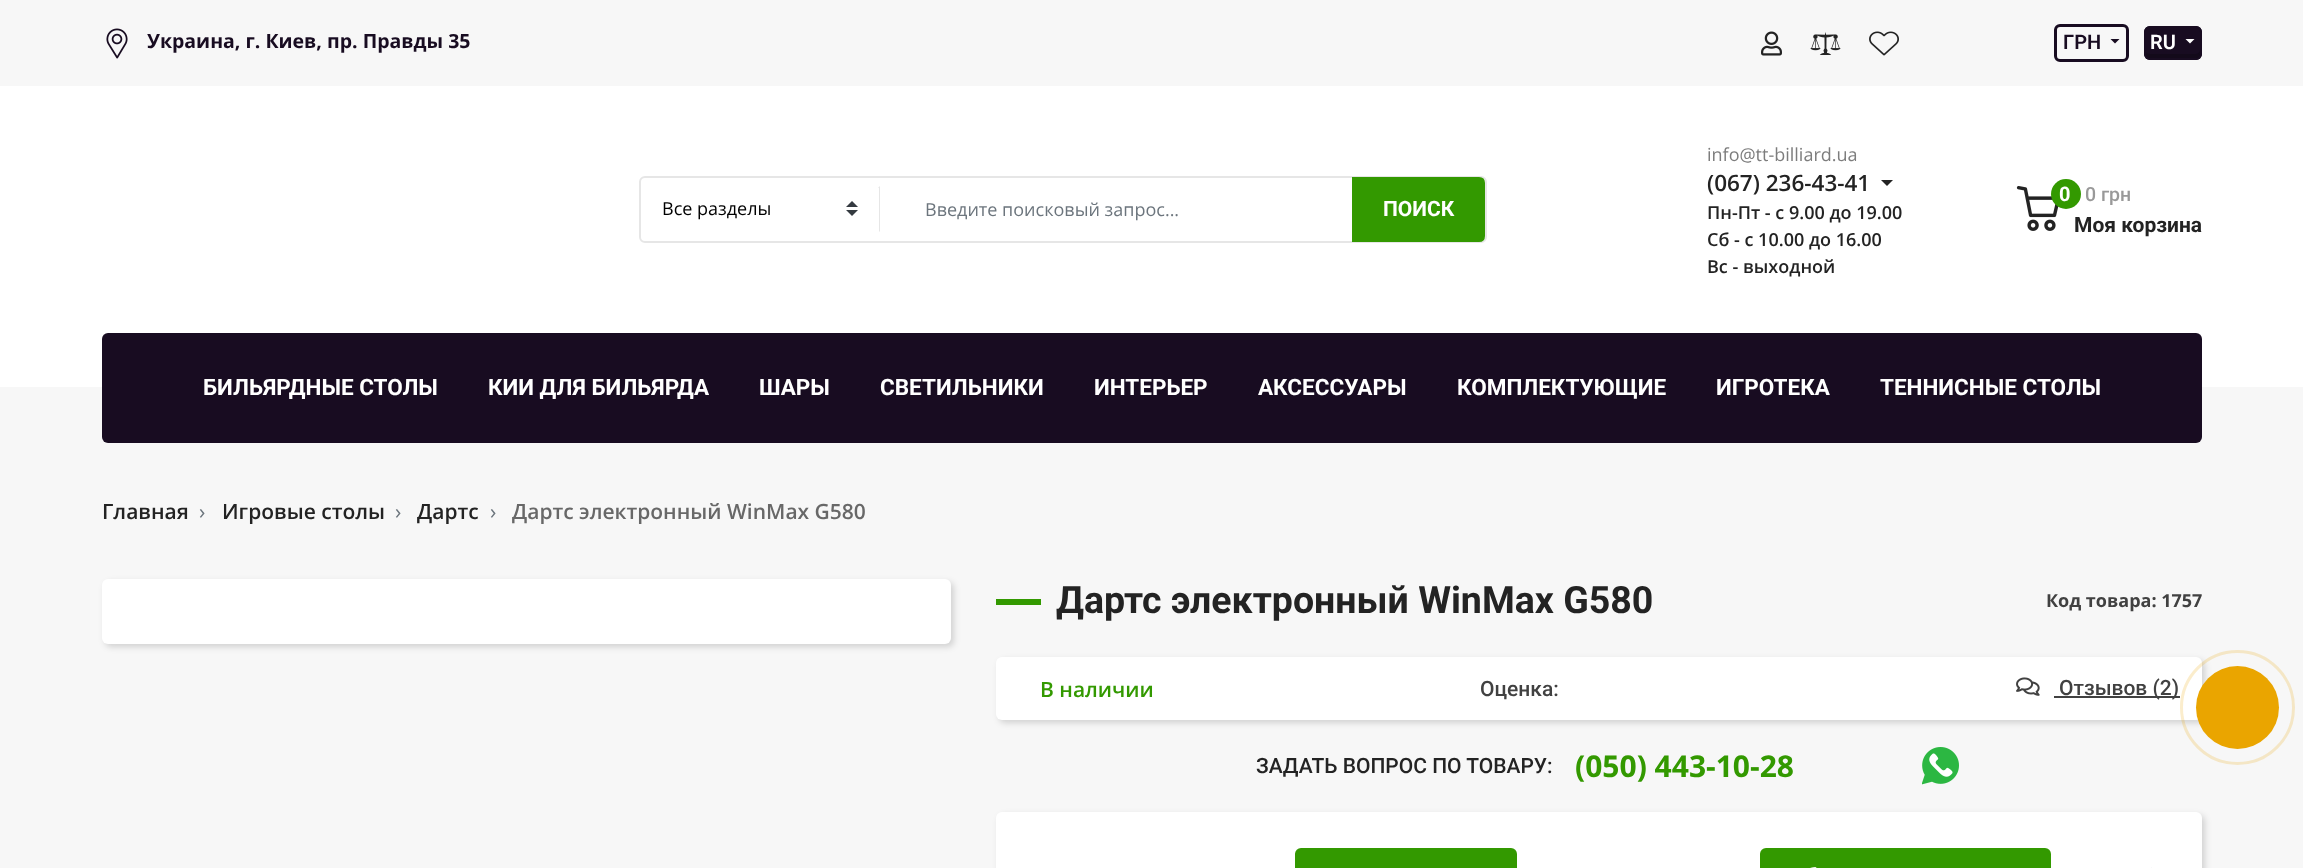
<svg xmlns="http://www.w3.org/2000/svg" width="2303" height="868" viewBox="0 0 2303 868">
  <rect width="100%" height="100%" fill="#f7f7f7"/>
  <image x="106" y="28" width="22" height="31" href="img/1.png"/>
  <image x="1761" y="31" width="21" height="25" href="img/2.png"/>
  <image x="1810" y="32" width="31" height="23" href="img/3.png"/>
  <image x="1869" y="31" width="30" height="25" href="img/4.png"/>
  <rect x="2055.5" y="25.5" width="72" height="35" rx="4.5" fill="none" stroke="#180c21" stroke-width="3"/>
  <path d="M2110.5 39H2119.5L2115 43.5Z" fill="#180c21"/>
  <rect x="2144" y="26" width="58" height="34" rx="6" fill="#180c21"/>
  <path d="M2145 50C2145 60 2148 59 2158 59H2188C2204 59 2201 58 2201 43C2201 40 2202 32 2200 29V50C2200 52 2198 54 2196 54H2150C2147 54 2145 52 2145 50Z" fill="#130a1a"/>
  <rect x="2145" y="27" width="56" height="32" rx="5" fill="none" stroke="#180c21" stroke-width="2"/>
  <path d="M2185.5 39H2194.5L2190 43.5Z" fill="#fff"/>
  <path d="M0 86h2303v301H0z" fill="#fff"/>
  <rect x="640" y="177" width="846" height="65" rx="5" fill="none" stroke="#e6e6e6" stroke-width="2"/>
  <image x="846" y="201" width="12" height="15" href="img/5.png"/>
  <path d="M880 186V232L879 231V188H878Z" fill="#e6e6e6"/>
  <path d="M1353 178H1479C1482 178 1484 180 1484 183V236C1484 239 1482 241 1479 241H1353Z" fill="#390" stroke="#390" stroke-width="2"/>
  <path d="M1881 180H1893L1887 186Z" fill="#232323"/>
  <image x="2016" y="186" width="43" height="45" href="img/6.png"/>
  <circle cx="2066" cy="194" r="15" fill="#390"/>
  <rect x="102" y="333" width="2100" height="110" rx="6" fill="#180c21"/>
  <rect x="105" y="582" width="849" height="65" rx="6" fill="#00000026" filter="blur(3px)"/>
  <rect x="102" y="579" width="849" height="65" rx="6" fill="#fff"/>
  <path d="M996 599h45v6H996z" fill="#390"/>
  <rect x="999" y="660" width="1206" height="63" rx="6" fill="#00000026" filter="blur(3px)"/>
  <rect x="996" y="657" width="1206" height="63" rx="6" fill="#fff"/>
  <image x="2016" y="677" width="24" height="19" href="img/7.png"/>
  <path d="M2054 696h126v2H2054z" fill="#414141"/>
  <image x="1922" y="747" width="37" height="38" href="img/8.png"/>
  <rect x="999" y="815" width="1206" height="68" rx="6" fill="#00000026" filter="blur(3px)"/>
  <rect x="996" y="812" width="1206" height="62" rx="6" fill="#fff"/>
  <rect x="1296" y="849" width="220" height="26" rx="5" fill="#390" stroke="#390" stroke-width="2"/>
  <rect x="1761" y="849" width="289" height="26" rx="5" fill="#390" stroke="#390" stroke-width="2"/>
  <image x="1810" y="867" width="7" height="1" href="img/9.png"/>
  <path d="M2151 867h1v1H2151z" fill="#f8f9fa"/>
  <circle cx="2237.5" cy="707.5" r="41.5" fill="#eaa500"/>
  <circle cx="2237.5" cy="707.5" r="56" fill="none" stroke="#eaa50033" stroke-width="3"/>
  <text x="147" y="48" font-family="Open Sans" font-size="19.5" font-weight="bold" fill="#180c21">Украина, г. Киев, пр. Правды 35</text>
  <text x="2063" y="49" font-family="Roboto" font-size="20" font-weight="600" fill="#180c21">ГРН</text>
  <text x="2150" y="49" font-family="Roboto" font-size="20" font-weight="600" fill="#fff">RU</text>
  <text x="662" y="215" font-family="Open Sans" font-size="18" fill="#000">Все разделы</text>
  <text x="925" y="216" font-family="Open Sans" font-size="18" fill="#6c757d">Введите поисковый запрос...</text>
  <text x="1383" y="216" font-family="Roboto" font-size="21" font-weight="bold" fill="#fff">ПОИСК</text>
  <text x="1707" y="161" font-family="Open Sans" font-size="18" fill="#7d7d7d">info@tt-billiard.ua</text>
  <text x="1707" y="191" font-family="Open Sans" font-size="22.5" font-weight="600" fill="#232323">(067) 236-43-41</text>
  <g font-family="Open Sans" font-size="18" font-weight="600" fill="#232323">
    <text x="1707" y="219">Пн-Пт - с 9.00 до 19.00</text>
    <text x="1707" y="246">Сб - с 10.00 до 16.00</text>
    <text x="1707" y="273">Вс - выходной</text>
  </g>
  <text x="2059" y="201" font-family="Roboto" font-size="20" font-weight="bold" fill="#fff">0</text>
  <text x="2085" y="201" font-family="Roboto" font-size="19.5" font-weight="500" fill="#999">0 грн</text>
  <text x="2074" y="232" font-family="Roboto" font-size="21" font-weight="bold" fill="#232323">Моя корзина</text>
  <g font-family="Roboto" font-size="22.5" font-weight="bold" fill="#fff">
    <text x="203" y="395">БИЛЬЯРДНЫЕ СТОЛЫ</text>
    <text x="488" y="395">КИИ ДЛЯ БИЛЬЯРДА</text>
    <text x="759" y="395">ШАРЫ</text>
    <text x="880" y="395">СВЕТИЛЬНИКИ</text>
    <text x="1094" y="395">ИНТЕРЬЕР</text>
    <text x="1258" y="395">АКСЕССУАРЫ</text>
    <text x="1457" y="395">КОМПЛЕКТУЮЩИЕ</text>
    <text x="1716" y="395">ИГРОТЕКА</text>
    <text x="1880" y="395">ТЕННИСНЫЕ СТОЛЫ</text>
  </g>
  <text x="102" y="519" font-family="Open Sans" font-size="21" font-weight="600" fill="#232323">Главная</text>
  <text x="199" y="519" font-family="Open Sans" font-size="21" fill="#6c757d">›</text>
  <text x="222" y="519" font-family="Open Sans" font-size="21" font-weight="600" fill="#232323">Игровые столы</text>
  <text x="395" y="519" font-family="Open Sans" font-size="21" fill="#6c757d">›</text>
  <text x="417" y="519" font-family="Open Sans" font-size="21" font-weight="600" fill="#232323">Дартс</text>
  <text x="490" y="519" font-family="Open Sans" font-size="21" fill="#6c757d">›</text>
  <text x="512" y="519" font-family="Open Sans" font-size="21" font-weight="600" fill="#686868">Дартс электронный WinMax G580</text>
  <text x="1056" y="613" font-family="Roboto" font-size="37.5" font-weight="bold" fill="#232323">Дартс электронный WinMax G580</text>
  <text x="2046" y="607" font-family="Open Sans" font-size="18" font-weight="bold" fill="#414141">Код товара: 1757</text>
  <text x="1040" y="697" font-family="Open Sans" font-size="21" font-weight="600" fill="#390">В наличии</text>
  <g font-family="Roboto" font-size="21" font-weight="500" fill="#414141">
    <text x="1480" y="696">Оценка:</text>
    <text x="2059" y="695">Отзывов (2)</text>
  </g>
  <text x="1256" y="773" font-family="Roboto" font-size="21" font-weight="500" fill="#232323">ЗАДАТЬ ВОПРОС ПО ТОВАРУ:</text>
  <text x="1575" y="777" font-family="Open Sans" font-size="30" font-weight="bold" fill="#390">(050) 443-10-28</text>
</svg>
